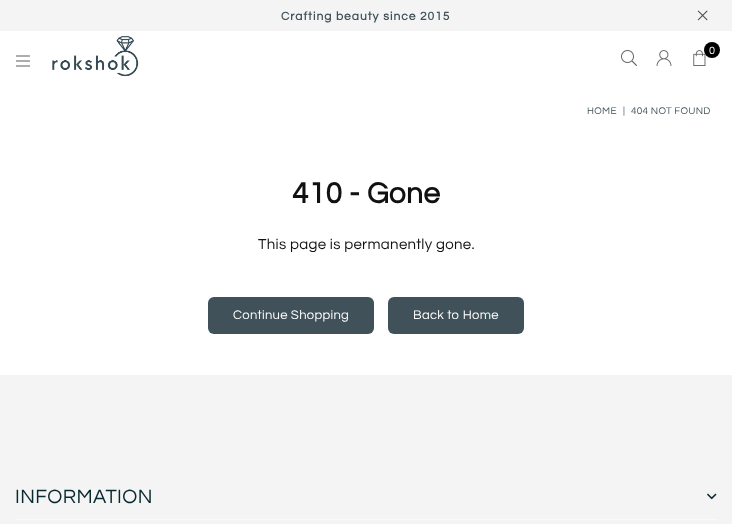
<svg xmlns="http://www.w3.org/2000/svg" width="732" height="524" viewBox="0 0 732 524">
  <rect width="100%" height="100%" fill="#fff"/>
  <path d="M0 0h732v31H0z" fill="#f4f4f4"/>
  <image x="697" y="10" width="11" height="11" href="img/1.png"/>
  <image x="52" y="36" width="87" height="41" href="img/2.png"/>
  <image x="621" y="50" width="16" height="16" href="img/3.png"/>
  <image x="656" y="50" width="16" height="16" href="img/4.png"/>
  <image x="693" y="50" width="13" height="16" href="img/5.png"/>
  <circle cx="712" cy="50" r="8" fill="#000"/>
  <image x="16" y="55" width="14" height="12" href="img/6.png"/>
  <rect x="208" y="297" width="166" height="37" rx="6" fill="#405159"/>
  <rect x="388" y="297" width="136" height="37" rx="6" fill="#405159"/>
  <path d="M0 375h732v149H0z" fill="#f4f4f4"/>
  <image x="707" y="493" width="10" height="7" href="img/7.png"/>
  <path d="M15 519h702v1H15z" fill="#f9f9f9"/>
  <text x="281" y="20" font-family="Questrial" font-size="12" font-weight="bold" letter-spacing="1" fill="#405159">Crafting beauty since 2015</text>
  <text x="709" y="54" font-family="Questrial" font-size="11" letter-spacing="0.3" fill="#fff">0</text>
  <g font-family="Questrial" font-size="10" letter-spacing="0.3" fill="#405159">
    <text x="587" y="114">HOME</text>
    <text x="623" y="114">|</text>
    <text x="631" y="114">404 NOT FOUND</text>
  </g>
  <text x="292" y="203" font-family="Questrial" font-size="30" font-weight="bold" letter-spacing="0.3" fill="#111">410 - Gone</text>
  <text x="258" y="249" font-family="Questrial" font-size="15" letter-spacing="0.3" fill="#111">This page is permanently gone.</text>
  <g font-family="Questrial" font-size="13" letter-spacing="0.3" fill="#fff">
    <text x="233" y="319">Continue Shopping</text>
    <text x="413" y="319">Back to Home</text>
  </g>
  <text x="15" y="503" font-family="Questrial" font-size="20" letter-spacing="0.4" fill="#092930">INFORMATION</text>
</svg>
